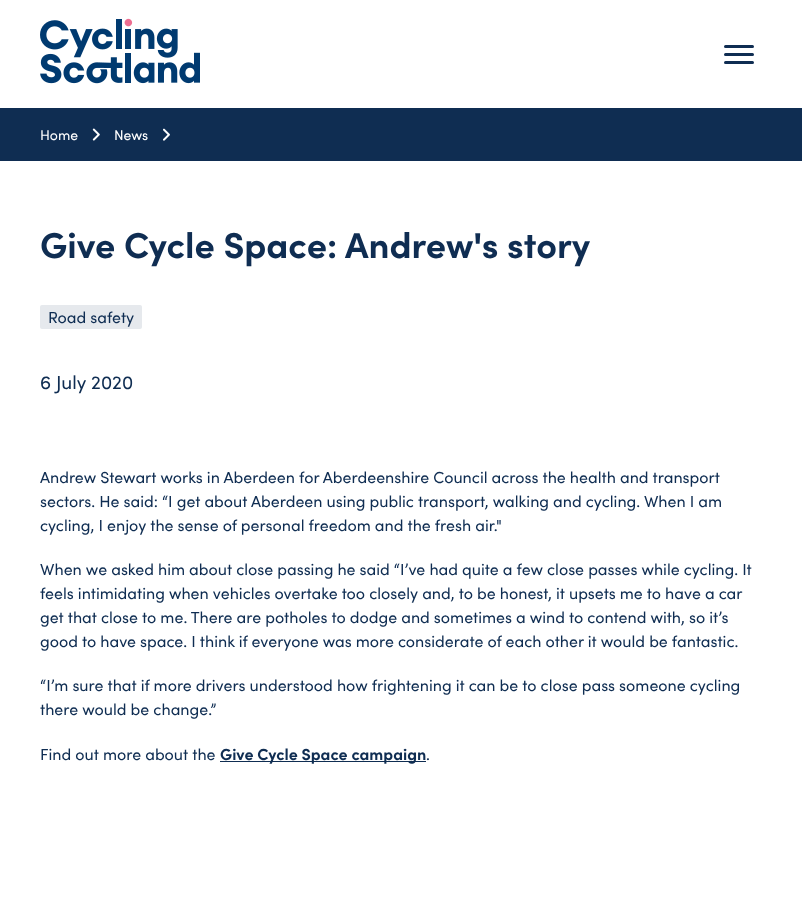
<svg xmlns="http://www.w3.org/2000/svg" width="802" height="897" viewBox="0 0 802 897">
  <rect width="100%" height="100%" fill="#fff"/>
  <image x="40" y="18" width="160" height="66" href="img/1.png"/>
  <rect x="724" y="53" width="30" height="3" rx="1.5" fill="#0f2d52"/>
  <rect x="724" y="45" width="30" height="3" rx="1.5" fill="#0f2d52"/>
  <rect x="724" y="61" width="30" height="3" rx="1.5" fill="#0f2d52"/>
  <path d="M0 108h802v53H0z" fill="#0f2d52"/>
  <image x="92" y="128" width="8" height="13" href="img/2.png"/>
  <image x="163" y="128" width="7" height="13" href="img/3.png"/>
  <rect x="40" y="305" width="102" height="24" rx="2" fill="#e6e9ed"/>
  <path d="M220 761h206v1H220z" fill="#0f2d52"/>
  <g font-family="Sofia" font-size="14" fill="#fff">
    <text x="40" y="140">Home</text>
    <text x="114" y="140">News</text>
  </g>
  <text x="40" y="258" font-family="Sofia" font-size="36" font-weight="bold" fill="#0f2d52">Give Cycle Space: Andrew's story</text>
  <text x="48" y="323" font-family="Sofia" font-size="16" fill="#0f2d52">Road safety</text>
  <text x="40" y="389" font-family="Sofia" font-size="19" fill="#0f2d52">6 July 2020</text>
  <g font-family="Sofia" font-size="16" fill="#0f2d52">
    <text x="40" y="483">Andrew Stewart works in Aberdeen for Aberdeenshire Council across the health and transport</text>
    <text x="40" y="507">sectors. He said: “I get about Aberdeen using public transport, walking and cycling. When I am</text>
    <text x="40" y="531">cycling, I enjoy the sense of personal freedom and the fresh air."</text>
    <text x="40" y="575">When we asked him about close passing he said “I’ve had quite a few close passes while cycling. It</text>
    <text x="40" y="599">feels intimidating when vehicles overtake too closely and, to be honest, it upsets me to have a car</text>
    <text x="40" y="623">get that close to me. There are potholes to dodge and sometimes a wind to contend with, so it’s</text>
    <text x="40" y="647">good to have space. I think if everyone was more considerate of each other it would be fantastic.</text>
    <text x="40" y="691">“I’m sure that if more drivers understood how frightening it can be to close pass someone cycling</text>
    <text x="40" y="715">there would be change.”</text>
    <text x="40" y="760">Find out more about the</text>
  </g>
  <text x="220" y="760" font-family="Sofia" font-size="16" font-weight="bold" fill="#0f2d52">Give Cycle Space campaign</text>
  <text x="426" y="760" font-family="Sofia" font-size="16" fill="#0f2d52">.</text>
</svg>
